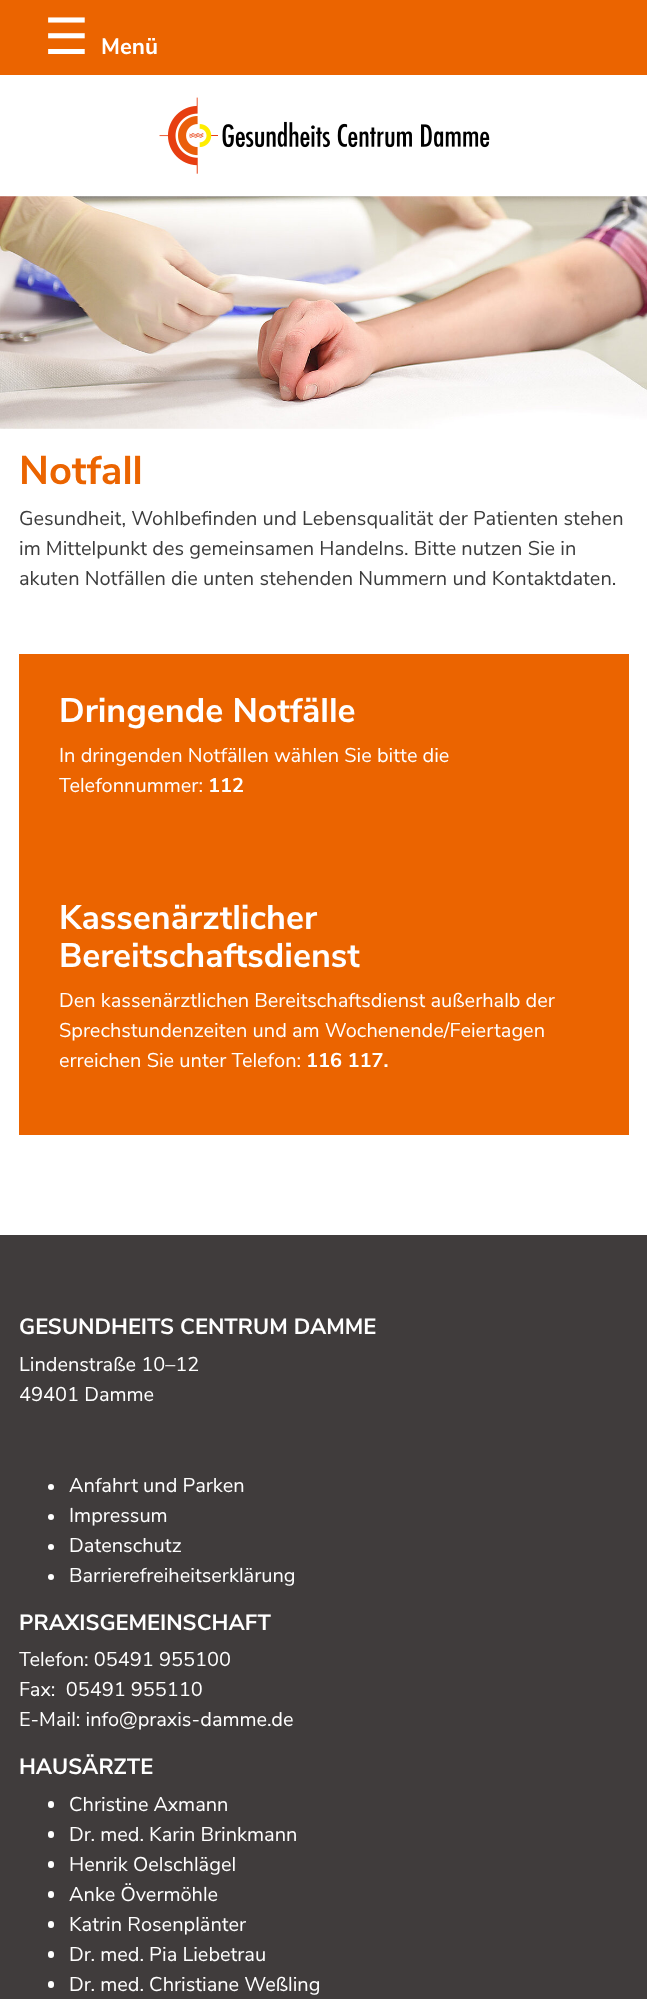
<svg xmlns="http://www.w3.org/2000/svg" width="647" height="1999" viewBox="0 0 647 1999">
  <rect width="100%" height="100%" fill="#fff"/>
  <path d="M0 0h647v75H0z" fill="#eb6400"/>
  <image x="159" y="97" width="331" height="77" href="img/1.png"/>
  <image x="0" y="196" width="647" height="233" href="img/2.png"/>
  <path d="M19 654h610v481H19z" fill="#eb6400"/>
  <path d="M0 1235h647v764H0z" fill="#403c3c"/>
  <circle cx="51" cy="1487" r="3" fill="#fff"/>
  <circle cx="51" cy="1517" r="3" fill="#fff"/>
  <circle cx="51" cy="1547" r="3" fill="#fff"/>
  <circle cx="51" cy="1577" r="3" fill="#fff"/>
  <rect x="48" y="1801" width="6" height="7" rx="3" fill="#fff"/>
  <rect x="48" y="1831" width="6" height="7" rx="3" fill="#fff"/>
  <rect x="48" y="1861" width="6" height="7" rx="3" fill="#fff"/>
  <rect x="48" y="1891" width="6" height="7" rx="3" fill="#fff"/>
  <rect x="48" y="1921" width="6" height="7" rx="3" fill="#fff"/>
  <rect x="48" y="1951" width="6" height="7" rx="3" fill="#fff"/>
  <rect x="48" y="1981" width="6" height="7" rx="3" fill="#fff"/>
  <text x="44" y="54" font-family="DejaVu Sans" font-size="50" fill="#fff">☰</text>
  <text x="101" y="54" font-family="Nunito Sans" font-size="22.5" font-weight="bold" fill="#fff">Menü</text>
  <text x="19" y="484" font-family="Nunito Sans" font-size="40" font-weight="bold" fill="#eb6400">Notfall</text>
  <g font-family="Nunito Sans" font-size="20" fill="#3c3c3c">
    <text x="19" y="525">Gesundheit, Wohlbefinden und Lebensqualität der Patienten stehen</text>
    <text x="19" y="555">im Mittelpunkt des gemeinsamen Handelns. Bitte nutzen Sie in</text>
    <text x="19" y="585">akuten Notfällen die unten stehenden Nummern und Kontaktdaten.</text>
  </g>
  <text x="59" y="722" font-family="Nunito Sans" font-size="34" font-weight="bold" fill="#fff">Dringende Notfälle</text>
  <g font-family="Nunito Sans" font-size="20" fill="#fff">
    <text x="59" y="762">In dringenden Notfällen wählen Sie bitte die</text>
    <text x="59" y="792">Telefonnummer:</text>
  </g>
  <text x="208" y="792" font-family="Nunito Sans" font-size="20" font-weight="bold" fill="#fff">112</text>
  <g font-family="Nunito Sans" font-size="34" font-weight="bold" fill="#fff">
    <text x="59" y="929">Kassenärztlicher</text>
    <text x="59" y="967">Bereitschaftsdienst</text>
  </g>
  <g font-family="Nunito Sans" font-size="20" fill="#fff">
    <text x="59" y="1007">Den kassenärztlichen Bereitschaftsdienst außerhalb der</text>
    <text x="59" y="1037">Sprechstundenzeiten und am Wochenende/Feiertagen</text>
    <text x="59" y="1067">erreichen Sie unter Telefon:</text>
  </g>
  <text x="306" y="1067" font-family="Nunito Sans" font-size="20" font-weight="bold" fill="#fff">116 117.</text>
  <text x="19" y="1334" font-family="Nunito Sans" font-size="22" font-weight="bold" fill="#fff">GESUNDHEITS CENTRUM DAMME</text>
  <g font-family="Nunito Sans" font-size="20" fill="#fff">
    <text x="19" y="1371">Lindenstraße 10–12</text>
    <text x="19" y="1401">49401 Damme</text>
    <text x="69" y="1492">Anfahrt und Parken</text>
    <text x="69" y="1522">Impressum</text>
    <text x="69" y="1552">Datenschutz</text>
    <text x="69" y="1582">Barrierefreiheitserklärung</text>
  </g>
  <text x="19" y="1630" font-family="Nunito Sans" font-size="22" font-weight="bold" fill="#fff">PRAXISGEMEINSCHAFT</text>
  <g font-family="Nunito Sans" font-size="20" fill="#fff">
    <text x="19" y="1666">Telefon: 05491 955100</text>
    <text x="19" y="1696" xml:space="preserve">Fax:  05491 955110</text>
    <text x="19" y="1726">E-Mail: info@praxis-damme.de</text>
  </g>
  <text x="19" y="1774" font-family="Nunito Sans" font-size="22" font-weight="bold" fill="#fff">HAUSÄRZTE</text>
  <g font-family="Nunito Sans" font-size="20" fill="#fff">
    <text x="69" y="1811">Christine Axmann</text>
    <text x="69" y="1841">Dr. med. Karin Brinkmann</text>
    <text x="69" y="1871">Henrik Oelschlägel</text>
    <text x="69" y="1901">Anke Övermöhle</text>
    <text x="69" y="1931">Katrin Rosenplänter</text>
    <text x="69" y="1961">Dr. med. Pia Liebetrau</text>
    <text x="69" y="1991">Dr. med. Christiane Weßling</text>
  </g>
</svg>
